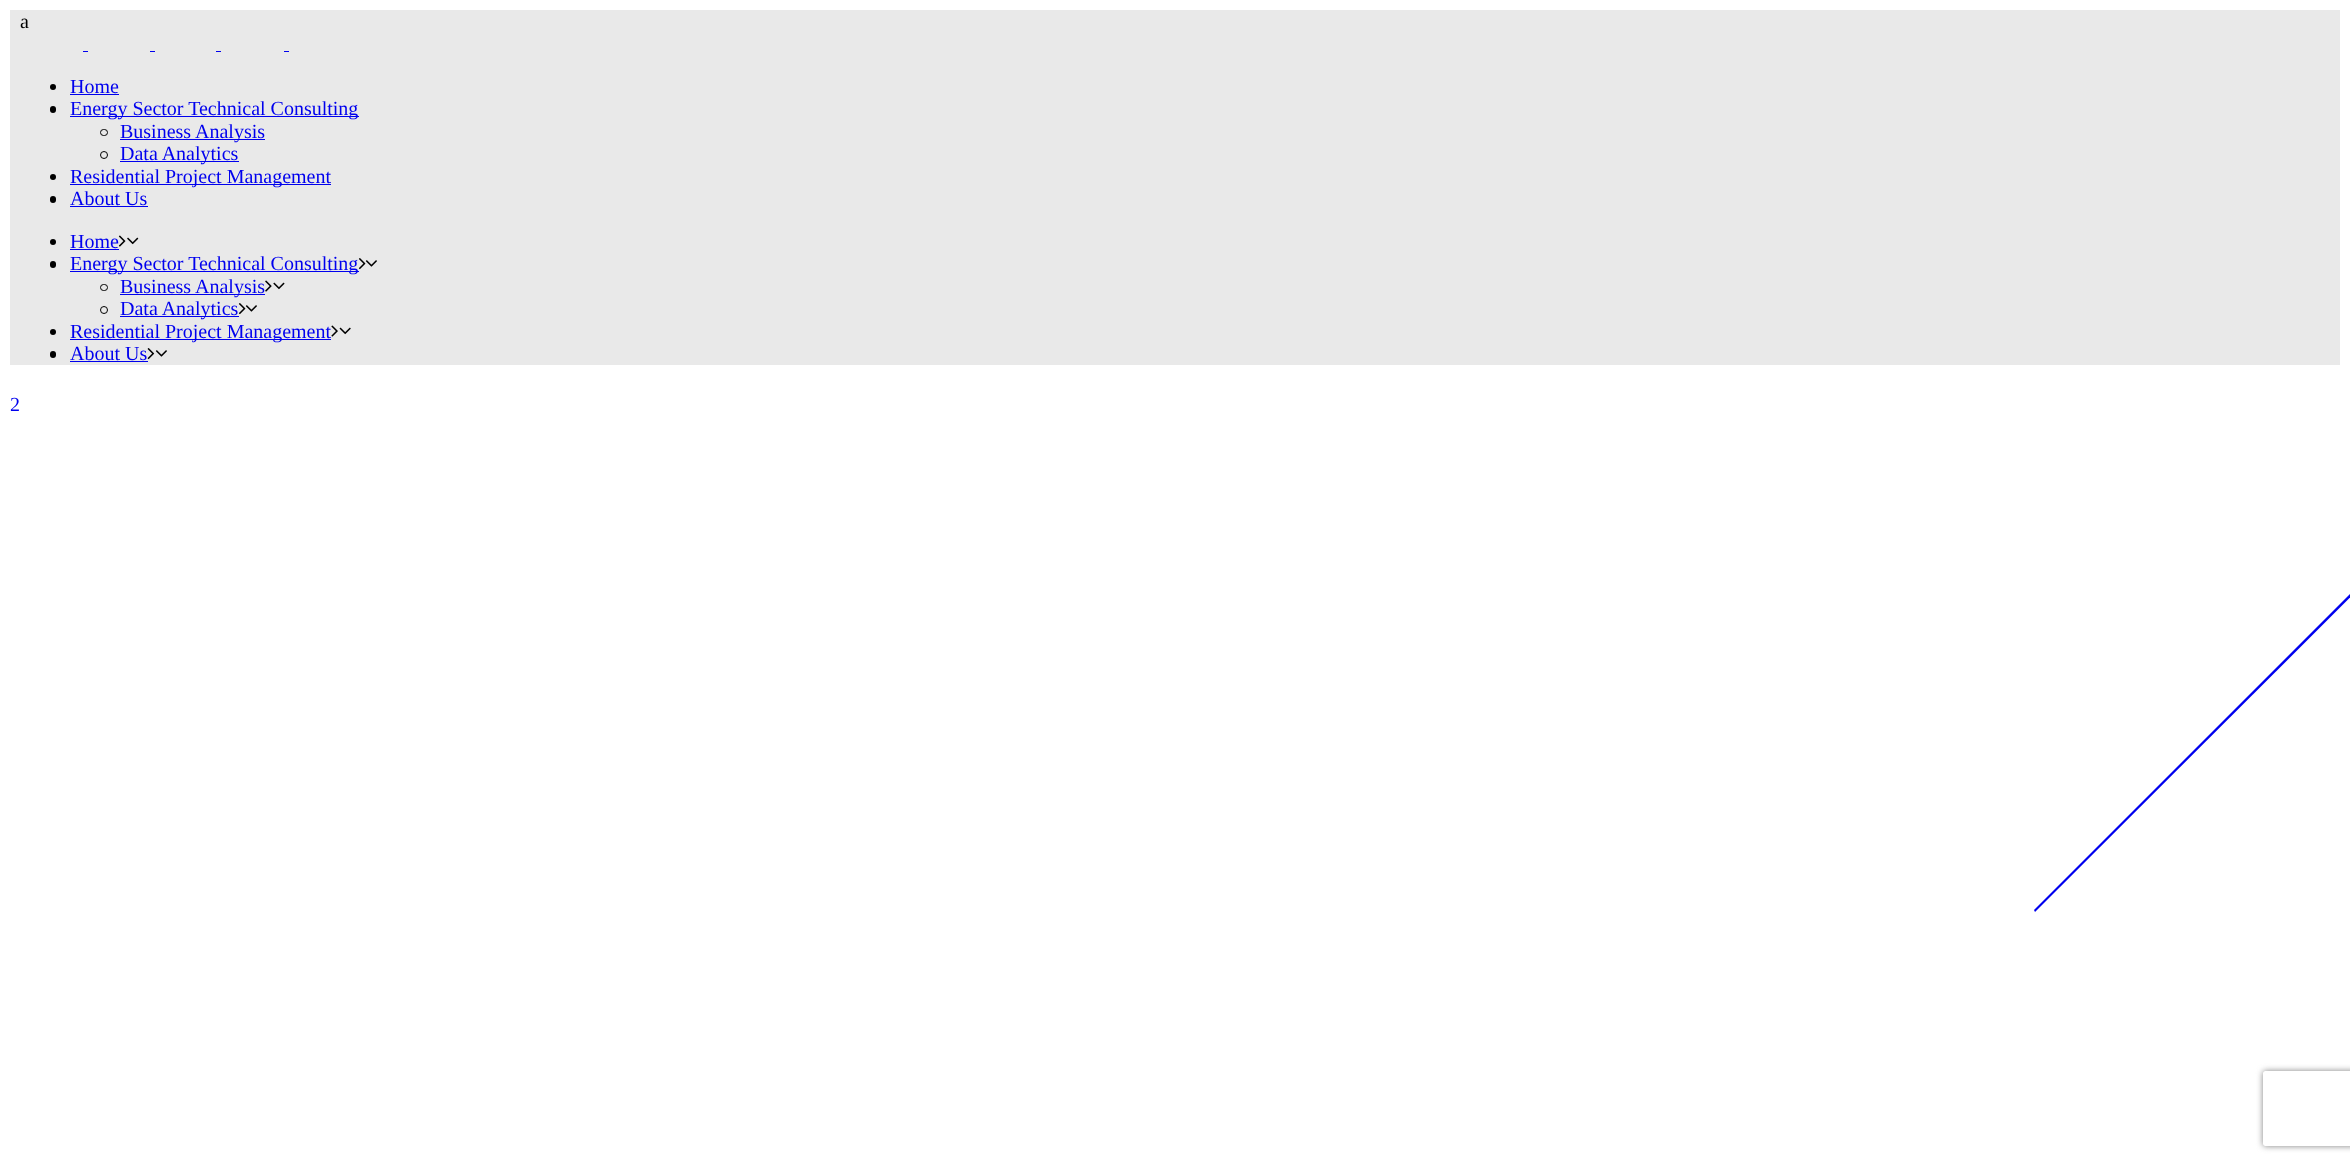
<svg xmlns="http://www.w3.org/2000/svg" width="2350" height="1163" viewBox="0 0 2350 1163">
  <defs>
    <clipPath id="clip1"><path d="M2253 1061H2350V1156H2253ZM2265.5 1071H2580.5C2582 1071 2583 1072 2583 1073.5V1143.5C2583 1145 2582 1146 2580.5 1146H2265.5C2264 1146 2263 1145 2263 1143.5V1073.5C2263 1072 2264 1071 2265.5 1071Z" clip-rule="evenodd"/></clipPath>
  </defs>
  <rect width="100%" height="100%" fill="#fff"/>
  <path d="M10 10h2330v355H10z" fill="#e9e9e9"/>
  <path d="M83 51h5v1H83z" fill="#00e"/>
  <path d="M150 51h5v1H150z" fill="#00e"/>
  <path d="M216 51h5v1H216z" fill="#00e"/>
  <path d="M284 51h5v1H284z" fill="#00e"/>
  <circle cx="53" cy="87" r="3" fill="#000"/>
  <path d="M70 94h49v1H70z" fill="#00e"/>
  <rect x="50" y="106" width="6" height="7" rx="3" fill="#000"/>
  <path d="M70 116h289v1H70z" fill="#00e"/>
  <path d="M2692 252L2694 254L2035 912L2034 910Z" fill="#00e"/>
  <rect x="100.5" y="129.5" width="7" height="6" rx="3" fill="none" stroke="#000"/>
  <path d="M120 139h145v1H120z" fill="#00e"/>
  <circle cx="104" cy="155" r="3.5" fill="none" stroke="#000"/>
  <path d="M120 161h119v1H120z" fill="#00e"/>
  <circle cx="53" cy="177" r="3" fill="#000"/>
  <path d="M70 184h261v1H70z" fill="#00e"/>
  <rect x="50" y="196" width="6" height="7" rx="3" fill="#000"/>
  <path d="M70 206h78v1H70z" fill="#00e"/>
  <circle cx="53" cy="242" r="3" fill="#000"/>
  <path d="M70 249h49v1H70z" fill="#00e"/>
  <image x="127" y="237" width="12" height="8" href="img/2.png"/>
  <rect x="50" y="261" width="6" height="7" rx="3" fill="#000"/>
  <path d="M70 271h289v1H70z" fill="#00e"/>
  <image x="358" y="258" width="8" height="12" href="img/3.png"/>
  <image x="365" y="260" width="12" height="7" href="img/4.png"/>
  <rect x="100.5" y="284.5" width="7" height="6" rx="3" fill="none" stroke="#000"/>
  <path d="M120 294h145v1H120z" fill="#00e"/>
  <image x="265" y="280" width="7" height="12" href="img/5.png"/>
  <image x="273" y="282" width="12" height="8" href="img/6.png"/>
  <circle cx="104" cy="310" r="3.5" fill="none" stroke="#000"/>
  <path d="M120 316h119v1H120z" fill="#00e"/>
  <image x="238" y="303" width="8" height="12" href="img/3.png"/>
  <image x="245" y="305" width="12" height="7" href="img/4.png"/>
  <circle cx="53" cy="332" r="3" fill="#000"/>
  <path d="M70 339h261v1H70z" fill="#00e"/>
  <image x="331" y="325" width="7" height="12" href="img/7.png"/>
  <image x="339" y="327" width="12" height="8" href="img/8.png"/>
  <rect x="50" y="351" width="6" height="7" rx="3" fill="#000"/>
  <path d="M70 361h78v1H70z" fill="#00e"/>
  <image x="147" y="348" width="8" height="12" href="img/9.png"/>
  <image x="155" y="350" width="12" height="7" href="img/10.png"/>
  <g clip-path="url(#clip1)">
    <rect x="2263" y="1071" width="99" height="75" rx="2.5" fill="#808080" filter="blur(3px)"/>
  </g>
  <text x="20" y="28" font-family="Liberation Serif" font-size="20" fill="#000">a</text>
  <g font-family="Liberation Serif" font-size="20" fill="#00e">
    <text x="70" y="93">Home</text>
    <text x="70" y="115">Energy Sector Technical Consulting</text>
    <text x="120" y="138">Business Analysis</text>
    <text x="120" y="160">Data Analytics</text>
    <text x="70" y="183">Residential Project Management</text>
    <text x="70" y="205">About Us</text>
    <text x="70" y="248">Home</text>
  </g>
  <image x="118" y="235" width="8" height="12" href="img/1.png"/>
  <g font-family="Liberation Serif" font-size="20" fill="#00e">
    <text x="70" y="270">Energy Sector Technical Consulting</text>
    <text x="120" y="293">Business Analysis</text>
    <text x="120" y="315">Data Analytics</text>
    <text x="70" y="338">Residential Project Management</text>
    <text x="70" y="360">About Us</text>
    <text x="10" y="411">2</text>
  </g>
</svg>
